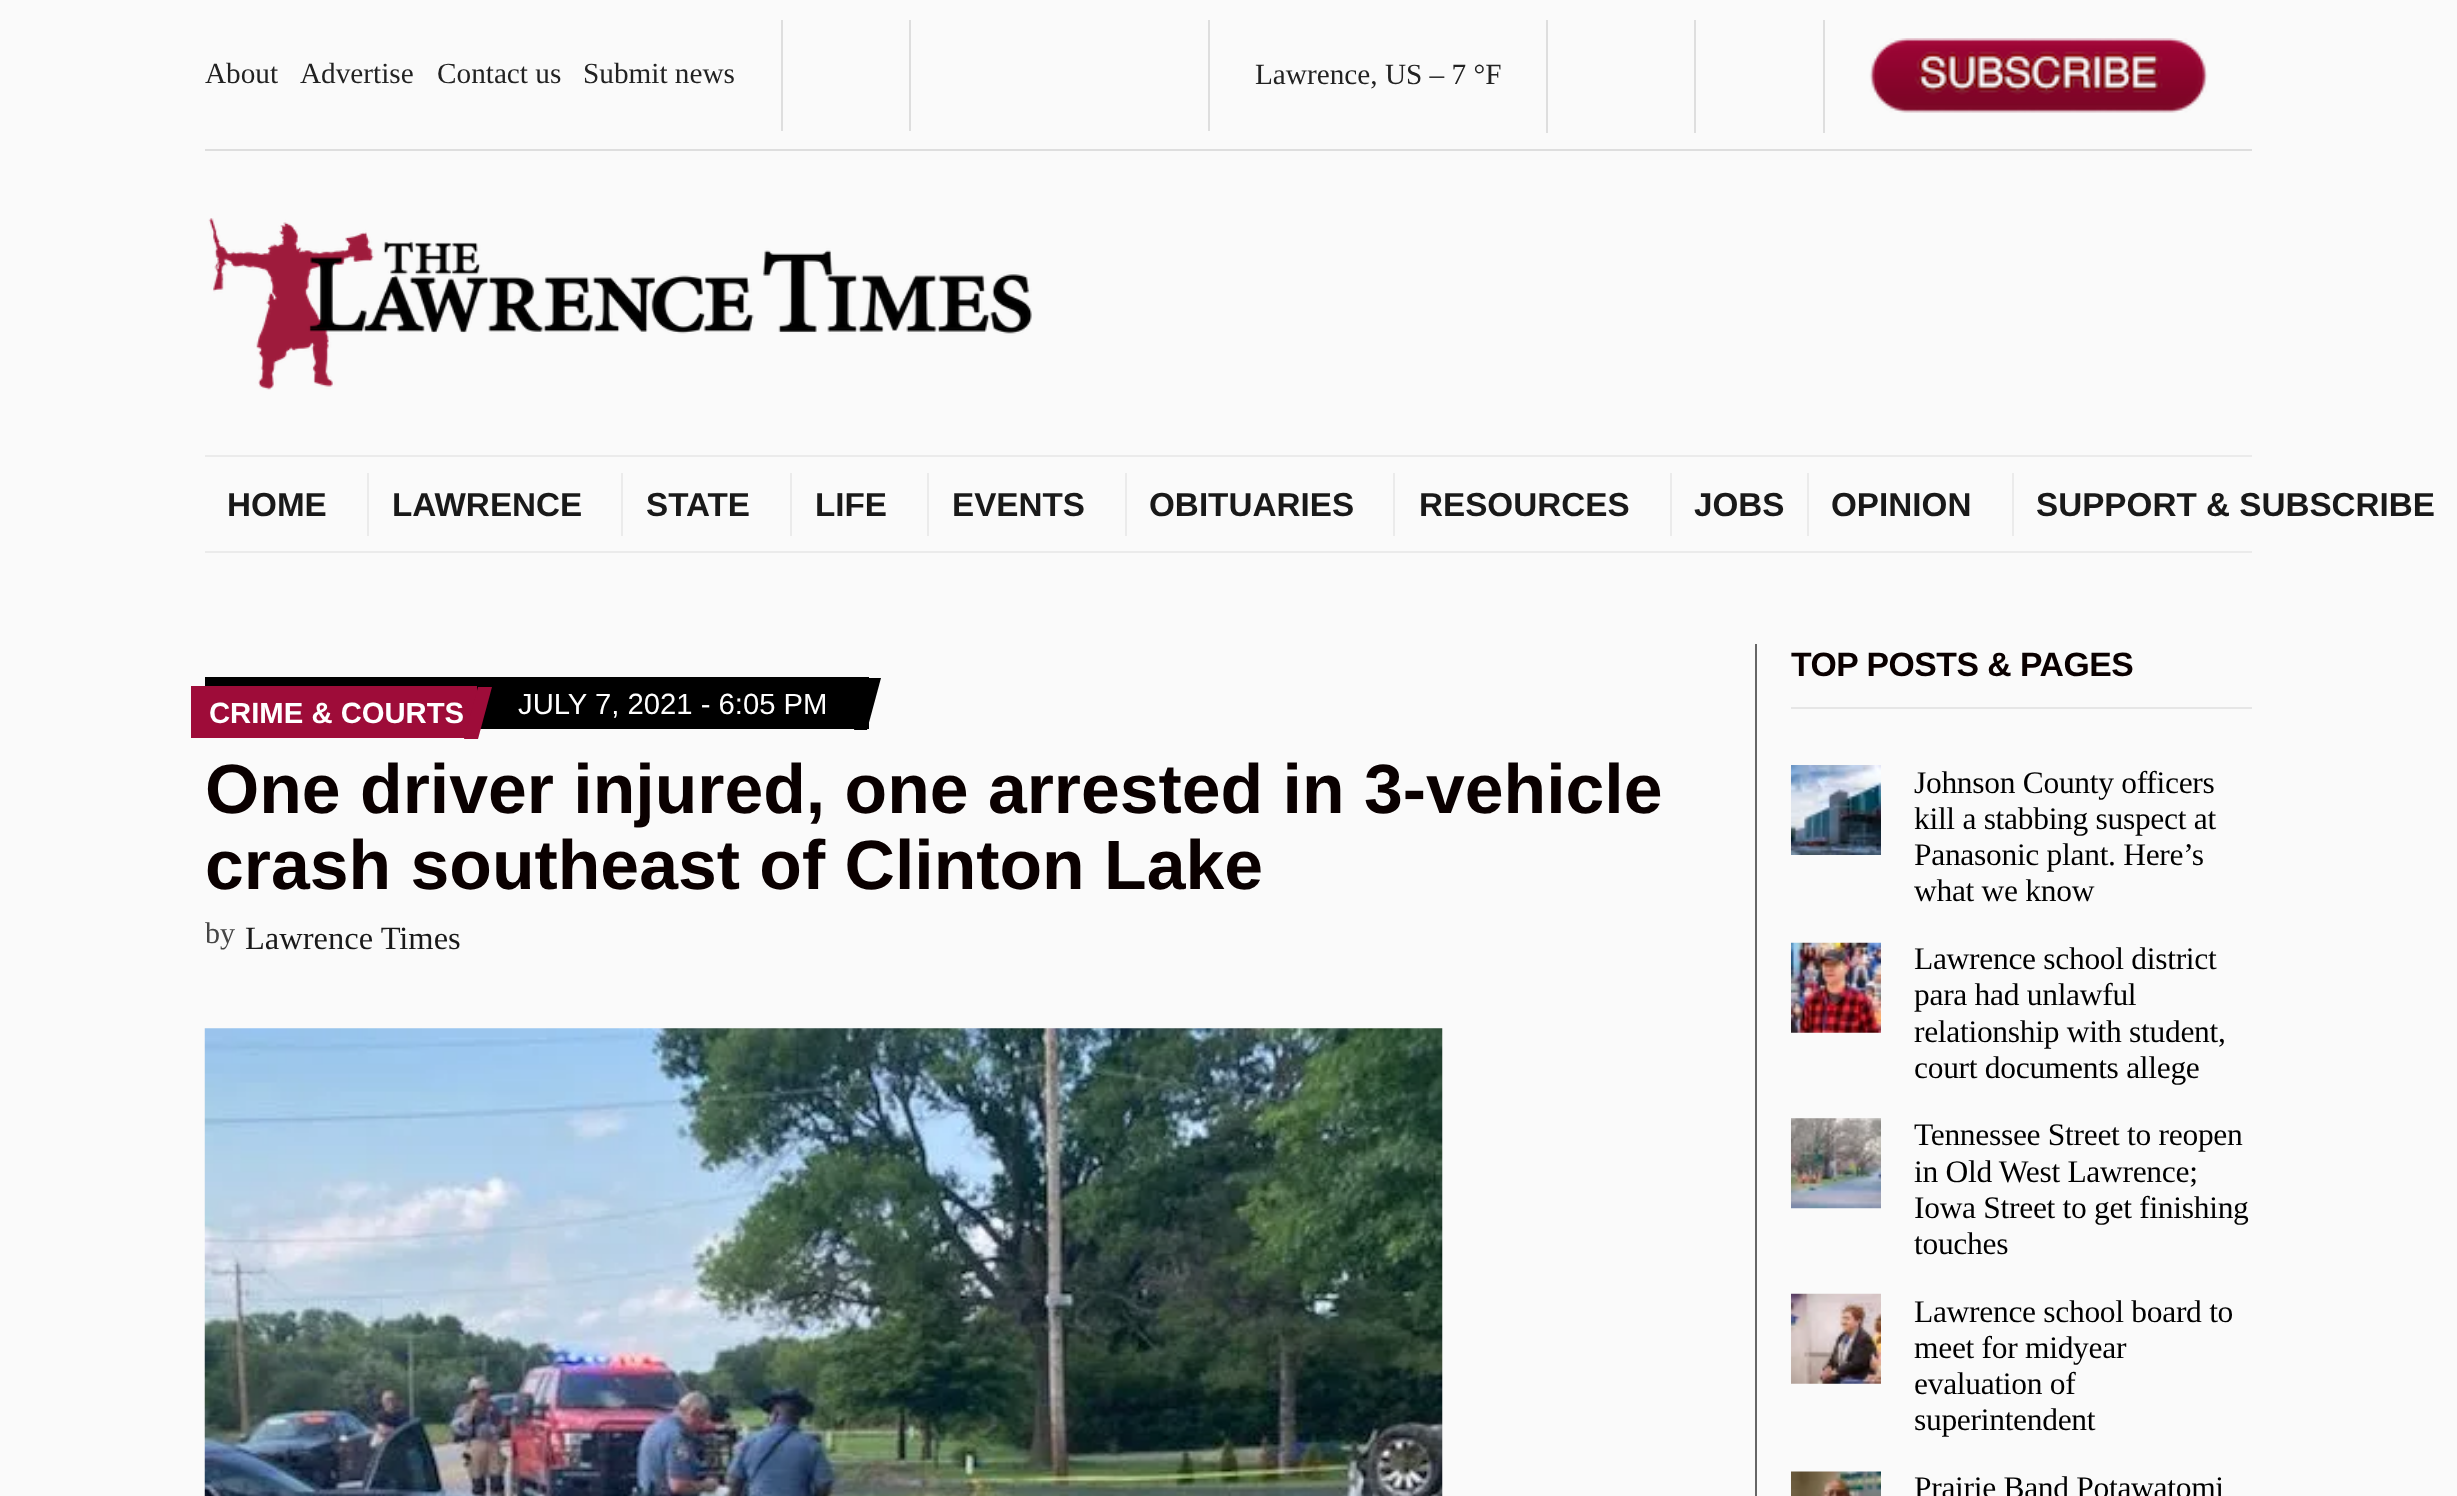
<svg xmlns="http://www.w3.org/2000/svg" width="2457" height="1496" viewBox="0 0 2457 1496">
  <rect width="100%" height="100%" fill="#fafafa"/>
  <path d="M781 20h2v111H781z" fill="#dedede"/>
  <path d="M1208 20h2v111H1208z" fill="#dedede"/>
  <path d="M909 20h2v111H909z" fill="#dedede"/>
  <path d="M1546 20h2v113H1546z" fill="#dedede"/>
  <path d="M1823 20h2v113H1823z" fill="#dedede"/>
  <path d="M1694 20h2v113H1694z" fill="#dedede"/>
  <image x="1869" y="38" width="339" height="75" href="img/1.png"/>
  <path d="M205 149h2047v2H205z" fill="#dedede"/>
  <image x="208" y="218" width="824" height="172" href="img/2.png"/>
  <path d="M205 455h2047v2H205z" fill="#ebebeb"/>
  <path d="M205 551h2047v2H205z" fill="#ebebeb"/>
  <path d="M367 473h2v63H367z" fill="#ebebeb"/>
  <path d="M621 473h2v63H621z" fill="#ebebeb"/>
  <path d="M790 473h2v63H790z" fill="#ebebeb"/>
  <path d="M927 473h2v63H927z" fill="#ebebeb"/>
  <path d="M1125 473h2v63H1125z" fill="#ebebeb"/>
  <path d="M1393 473h2v63H1393z" fill="#ebebeb"/>
  <path d="M1670 473h2v63H1670z" fill="#ebebeb"/>
  <path d="M1807 473h2v63H1807z" fill="#ebebeb"/>
  <path d="M2012 473h2v63H2012z" fill="#ebebeb"/>
  <path d="M1755 644h2v852H1755z" fill="#666"/>
  <path d="M205 677h664v52H205z" fill="#000"/>
  <path d="M191 686h286v52H191z" fill="#9e0c39"/>
  <path d="M478 687H492L478 739H464Z" fill="#9e0c39"/>
  <path d="M868 678H881L867 730H854Z" fill="#000"/>
  <image x="204" y="1028" width="1239" height="468" href="img/3.png"/>
  <path d="M1791 707h461v2H1791z" fill="#e6e6e6"/>
  <image x="1791" y="765" width="90" height="90" href="img/4.png"/>
  <image x="1791" y="942" width="90" height="91" href="img/5.png"/>
  <image x="1791" y="1118" width="90" height="91" href="img/6.png"/>
  <image x="1791" y="1293" width="90" height="91" href="img/7.png"/>
  <image x="1791" y="1471" width="90" height="25" href="img/8.png"/>
  <g font-family="Liberation Serif" font-size="29.25" fill="#222">
    <text x="205" y="83">About</text>
    <text x="300" y="83">Advertise</text>
    <text x="437" y="83">Contact us</text>
    <text x="583" y="83">Submit news</text>
    <text x="1255" y="84">Lawrence, US – 7 °F</text>
  </g>
  <g font-family="Liberation Sans" font-size="33.25" font-weight="bold" fill="#191919">
    <text x="227" y="516">HOME</text>
    <text x="392" y="516">LAWRENCE</text>
    <text x="646" y="516">STATE</text>
    <text x="815" y="516">LIFE</text>
    <text x="952" y="516">EVENTS</text>
    <text x="1149" y="516">OBITUARIES</text>
    <text x="1419" y="516">RESOURCES</text>
    <text x="1694" y="516">JOBS</text>
    <text x="1831" y="516">OPINION</text>
    <text x="2036" y="516">SUPPORT &amp; SUBSCRIBE</text>
  </g>
  <text x="209" y="723" font-family="Liberation Sans" font-size="29.25" font-weight="bold" fill="#fff">CRIME &amp; COURTS</text>
  <text x="518" y="714" font-family="Liberation Sans" font-size="29.25" fill="#fff">JULY 7, 2021 - 6:05 PM</text>
  <g font-family="Liberation Sans" font-size="69.75" font-weight="bold" fill="#0a0000">
    <text x="205" y="813">One driver injured, one arrested in 3-vehicle</text>
    <text x="205" y="889">crash southeast of Clinton Lake</text>
  </g>
  <text x="205" y="943" font-family="Liberation Serif" font-size="30" fill="#464646">by</text>
  <text x="245" y="949" font-family="Liberation Serif" font-size="32.5" fill="#191919">Lawrence Times</text>
  <text x="1791" y="676" font-family="Liberation Sans" font-size="33.75" font-weight="bold" letter-spacing="-0.5" fill="#0a0000">TOP POSTS &amp; PAGES</text>
  <g font-family="Liberation Serif" font-size="31.5" letter-spacing="-0.3" fill="#000">
    <text x="1914" y="793">Johnson County officers</text>
    <text x="1914" y="829">kill a stabbing suspect at</text>
    <text x="1914" y="865">Panasonic plant. Here’s</text>
    <text x="1914" y="901">what we know</text>
    <text x="1914" y="969">Lawrence school district</text>
    <text x="1914" y="1005">para had unlawful</text>
    <text x="1914" y="1042">relationship with student,</text>
    <text x="1914" y="1078">court documents allege</text>
    <text x="1914" y="1145">Tennessee Street to reopen</text>
    <text x="1914" y="1182">in Old West Lawrence;</text>
    <text x="1914" y="1218">Iowa Street to get finishing</text>
    <text x="1914" y="1254">touches</text>
    <text x="1914" y="1322">Lawrence school board to</text>
    <text x="1914" y="1358">meet for midyear</text>
    <text x="1914" y="1394">evaluation of</text>
    <text x="1914" y="1430">superintendent</text>
    <text x="1914" y="1498">Prairie Band Potawatomi</text>
  </g>
</svg>
